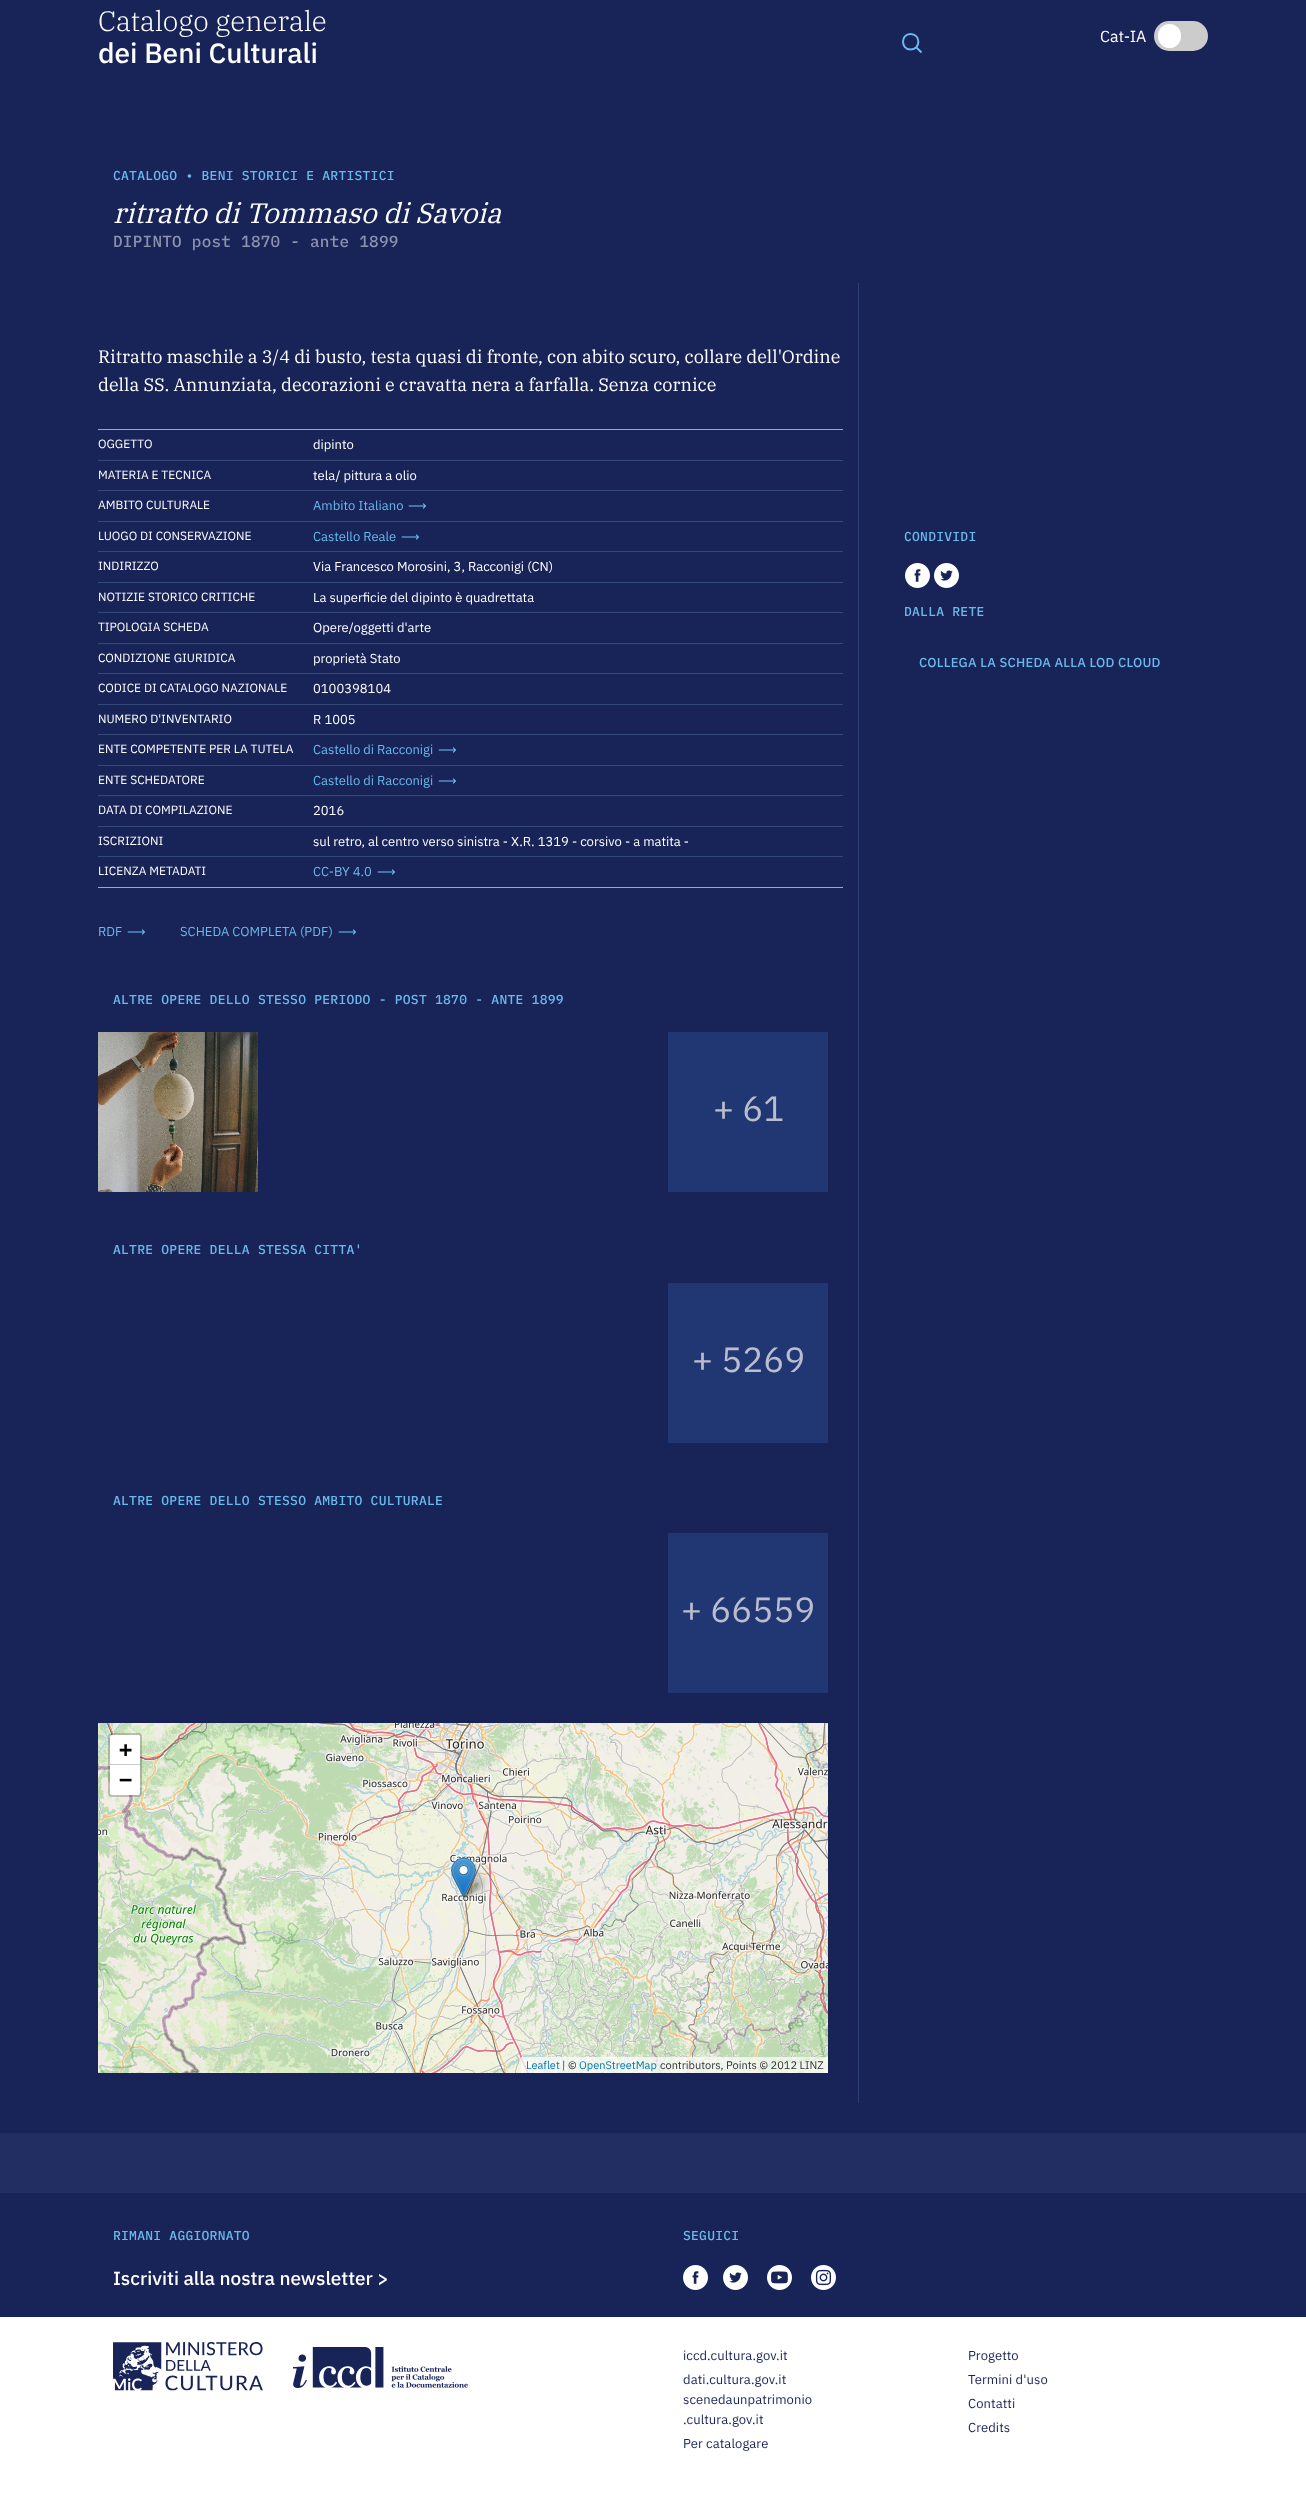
<svg xmlns="http://www.w3.org/2000/svg" width="1306" height="2513" viewBox="0 0 1306 2513">
  <rect width="100%" height="100%" fill="#fff"/>
  <path d="M0 0h1306v2133H0z" fill="#182358"/>
  <path d="M910.5 49.5C921 49.5 921 34 910.5 34C900.5 34 900.5 49.5 910.5 49.5ZM916.5 47.5L921.5 52.5" fill="none" stroke="#69b9ec" stroke-width="2"/>
  <rect x="1154" y="21" width="54" height="30" rx="15" fill="#ccc"/>
  <rect x="1158" y="24" width="23" height="24" rx="11.5" fill="#fff"/>
  <path d="M858 283h1v1820H858z" fill="#2a3f71"/>
  <path d="M98 429h745v1H98z" fill="#69b9ec"/>
  <path d="M98 887h745v1H98z" fill="#69b9ec"/>
  <path d="M98 460h745v1H98z" fill="#354979"/>
  <path d="M98 490h745v1H98z" fill="#354979"/>
  <path d="M98 521h745v1H98z" fill="#354979"/>
  <path d="M98 551h745v1H98z" fill="#354979"/>
  <path d="M98 582h745v1H98z" fill="#354979"/>
  <path d="M98 612h745v1H98z" fill="#354979"/>
  <path d="M98 643h745v1H98z" fill="#354979"/>
  <path d="M98 673h745v1H98z" fill="#354979"/>
  <path d="M98 704h745v1H98z" fill="#354979"/>
  <path d="M98 734h745v1H98z" fill="#354979"/>
  <path d="M98 765h745v1H98z" fill="#354979"/>
  <path d="M98 795h745v1H98z" fill="#354979"/>
  <path d="M98 826h745v1H98z" fill="#354979"/>
  <path d="M98 856h745v1H98z" fill="#354979"/>
  <image x="98" y="1032" width="160" height="160" href="img/1.png"/>
  <path d="M668 1032h160v160H668z" fill="#203774"/>
  <path d="M668 1283h160v160H668z" fill="#203774"/>
  <path d="M668 1533h160v160H668z" fill="#203774"/>
  <image x="98" y="1723" width="130" height="10" href="img/2.png"/>
  <image x="228" y="1723" width="256" height="10" href="img/3.png"/>
  <image x="484" y="1723" width="256" height="10" href="img/4.png"/>
  <image x="740" y="1723" width="88" height="10" href="img/5.png"/>
  <image x="98" y="1733" width="130" height="256" href="img/6.png"/>
  <image x="228" y="1733" width="256" height="256" href="img/7.png"/>
  <image x="484" y="1733" width="256" height="256" href="img/8.png"/>
  <image x="740" y="1733" width="88" height="256" href="img/9.png"/>
  <image x="98" y="1989" width="130" height="84" href="img/10.png"/>
  <image x="228" y="1989" width="256" height="84" href="img/11.png"/>
  <image x="484" y="1989" width="256" height="84" href="img/12.png"/>
  <image x="740" y="1989" width="88" height="84" href="img/13.png"/>
  <image x="461" y="1870" width="29" height="28" href="img/15.png"/>
  <image x="451" y="1857" width="25" height="41" href="img/14.png"/>
  <rect x="109" y="1734" width="32" height="62" rx="3" fill="none" stroke="#00000033" stroke-width="2"/>
  <path d="M112 1735H138C139 1735 140 1736 140 1737V1765H110V1737C110 1736 111 1735 112 1735Z" fill="#fff"/>
  <path d="M110 1764h30v1H110z" fill="#ccc"/>
  <path d="M110 1765H140V1793C140 1794 139 1795 138 1795H112C111 1795 110 1794 110 1793Z" fill="#fff"/>
  <path d="M521 2057h307v16H521z" fill="#ffffffb3"/>
  <image x="905" y="563" width="25" height="25" href="img/16.png"/>
  <image x="934" y="563" width="25" height="25" href="img/17.png"/>
  <path d="M0 2133h1306v60H0z" fill="#222e61"/>
  <path d="M0 2193h1306v124H0z" fill="#182358"/>
  <image x="683" y="2265" width="25" height="25" href="img/16.png"/>
  <image x="723" y="2265" width="25" height="25" href="img/17.png"/>
  <image x="767" y="2265" width="25" height="25" href="img/18.png"/>
  <image x="811" y="2265" width="25" height="25" href="img/19.png"/>
  <image x="113" y="2342" width="150" height="49" href="img/20.png"/>
  <image x="293" y="2347" width="175" height="41" href="img/21.png"/>
  <text x="98" y="31" font-family="IBM Plex Serif" font-size="28" font-weight="300" fill="#fff">Catalogo generale</text>
  <text x="98" y="63" font-family="IBM Plex Sans" font-size="28" font-weight="500" fill="#fff">dei Beni Culturali</text>
  <text x="1100" y="42" font-family="IBM Plex Sans" font-size="16" fill="#fff">Cat-IA</text>
  <text x="113" y="180" font-family="IBM Plex Mono" font-size="13" font-weight="500" letter-spacing="0.25" fill="#69b9ec">CATALOGO • BENI STORICI E ARTISTICI</text>
  <text x="113" y="223" font-family="IBM Plex Serif" font-size="28" font-style="italic" fill="#fff">ritratto di Tommaso di Savoia</text>
  <text x="113" y="247" font-family="IBM Plex Mono" font-size="16" font-weight="500" letter-spacing="0.25" fill="#8c91ac">DIPINTO post 1870 - ante 1899</text>
  <g font-family="IBM Plex Serif" font-size="18" fill="#fff">
    <text x="98" y="363">Ritratto maschile a 3/4 di busto, testa quasi di fronte, con abito scuro, collare dell'Ordine</text>
    <text x="98" y="391">della SS. Annunziata, decorazioni e cravatta nera a farfalla. Senza cornice</text>
  </g>
  <text x="98" y="448" font-family="IBM Plex Sans" font-size="12" fill="#fff">OGGETTO</text>
  <text x="313" y="449" font-family="IBM Plex Sans" font-size="13" fill="#fff">dipinto</text>
  <text x="98" y="479" font-family="IBM Plex Sans" font-size="12" fill="#fff">MATERIA E TECNICA</text>
  <text x="313" y="480" font-family="IBM Plex Sans" font-size="13" fill="#fff">tela/ pittura a olio</text>
  <text x="98" y="509" font-family="IBM Plex Sans" font-size="12" fill="#fff">AMBITO CULTURALE</text>
  <text x="313" y="510" font-family="IBM Plex Sans" font-size="13" fill="#69b9ec">Ambito Italiano</text>
  <text x="408" y="510" font-family="DejaVu Sans" font-size="13" fill="#69b9ec">⟶</text>
  <text x="98" y="540" font-family="IBM Plex Sans" font-size="12" fill="#fff">LUOGO DI CONSERVAZIONE</text>
  <text x="313" y="541" font-family="IBM Plex Sans" font-size="13" fill="#69b9ec">Castello Reale</text>
  <text x="401" y="541" font-family="DejaVu Sans" font-size="13" fill="#69b9ec">⟶</text>
  <text x="98" y="570" font-family="IBM Plex Sans" font-size="12" fill="#fff">INDIRIZZO</text>
  <text x="313" y="571" font-family="IBM Plex Sans" font-size="13" fill="#fff">Via Francesco Morosini, 3, Racconigi (CN)</text>
  <text x="98" y="601" font-family="IBM Plex Sans" font-size="12" fill="#fff">NOTIZIE STORICO CRITICHE</text>
  <text x="313" y="602" font-family="IBM Plex Sans" font-size="13" fill="#fff">La superficie del dipinto è quadrettata</text>
  <text x="98" y="631" font-family="IBM Plex Sans" font-size="12" fill="#fff">TIPOLOGIA SCHEDA</text>
  <text x="313" y="632" font-family="IBM Plex Sans" font-size="13" fill="#fff">Opere/oggetti d'arte</text>
  <text x="98" y="662" font-family="IBM Plex Sans" font-size="12" fill="#fff">CONDIZIONE GIURIDICA</text>
  <text x="313" y="663" font-family="IBM Plex Sans" font-size="13" fill="#fff">proprietà Stato</text>
  <text x="98" y="692" font-family="IBM Plex Sans" font-size="12" fill="#fff">CODICE DI CATALOGO NAZIONALE</text>
  <text x="313" y="693" font-family="IBM Plex Sans" font-size="13" fill="#fff">0100398104</text>
  <text x="98" y="723" font-family="IBM Plex Sans" font-size="12" fill="#fff">NUMERO D'INVENTARIO</text>
  <text x="313" y="724" font-family="IBM Plex Sans" font-size="13" fill="#fff">R 1005</text>
  <text x="98" y="753" font-family="IBM Plex Sans" font-size="12" fill="#fff">ENTE COMPETENTE PER LA TUTELA</text>
  <text x="313" y="754" font-family="IBM Plex Sans" font-size="13" fill="#69b9ec">Castello di Racconigi</text>
  <text x="438" y="754" font-family="DejaVu Sans" font-size="13" fill="#69b9ec">⟶</text>
  <text x="98" y="784" font-family="IBM Plex Sans" font-size="12" fill="#fff">ENTE SCHEDATORE</text>
  <text x="313" y="785" font-family="IBM Plex Sans" font-size="13" fill="#69b9ec">Castello di Racconigi</text>
  <text x="438" y="785" font-family="DejaVu Sans" font-size="13" fill="#69b9ec">⟶</text>
  <text x="98" y="814" font-family="IBM Plex Sans" font-size="12" fill="#fff">DATA DI COMPILAZIONE</text>
  <text x="313" y="815" font-family="IBM Plex Sans" font-size="13" fill="#fff">2016</text>
  <text x="98" y="845" font-family="IBM Plex Sans" font-size="12" fill="#fff">ISCRIZIONI</text>
  <text x="313" y="846" font-family="IBM Plex Sans" font-size="13" fill="#fff">sul retro, al centro verso sinistra - X.R. 1319 - corsivo - a matita -</text>
  <text x="98" y="875" font-family="IBM Plex Sans" font-size="12" fill="#fff">LICENZA METADATI</text>
  <text x="313" y="876" font-family="IBM Plex Sans" font-size="13" fill="#69b9ec">CC-BY 4.0</text>
  <text x="377" y="876" font-family="DejaVu Sans" font-size="13" fill="#69b9ec">⟶</text>
  <text x="98" y="936" font-family="IBM Plex Sans" font-size="13" fill="#69b9ec">RDF</text>
  <text x="127" y="936" font-family="DejaVu Sans" font-size="13" fill="#69b9ec">⟶</text>
  <text x="180" y="936" font-family="IBM Plex Sans" font-size="13" fill="#69b9ec">SCHEDA COMPLETA (PDF)</text>
  <text x="338" y="936" font-family="DejaVu Sans" font-size="13" fill="#69b9ec">⟶</text>
  <text x="113" y="1004" font-family="IBM Plex Mono" font-size="13" font-weight="500" letter-spacing="0.25" fill="#69b9ec">ALTRE OPERE DELLO STESSO PERIODO - POST 1870 - ANTE 1899</text>
  <text x="713" y="1121" font-family="IBM Plex Sans" font-size="35" fill="#babdcd">+ 61</text>
  <text x="113" y="1254" font-family="IBM Plex Mono" font-size="13" font-weight="500" letter-spacing="0.25" fill="#69b9ec">ALTRE OPERE DELLA STESSA CITTA'</text>
  <text x="692" y="1372" font-family="IBM Plex Sans" font-size="35" fill="#babdcd">+ 5269</text>
  <text x="113" y="1505" font-family="IBM Plex Mono" font-size="13" font-weight="500" letter-spacing="0.25" fill="#69b9ec">ALTRE OPERE DELLO STESSO AMBITO CULTURALE</text>
  <text x="681" y="1622" font-family="IBM Plex Sans" font-size="35" fill="#babdcd">+ 66559</text>
  <g font-family="DejaVu Sans Mono" font-size="22" font-weight="bold" fill="#000">
    <text x="119" y="1757">+</text>
    <text x="119" y="1787">−</text>
  </g>
  <text x="526" y="2069" font-family="IBM Plex Sans" font-size="11" fill="#0078a8">Leaflet</text>
  <text x="562" y="2069" font-family="IBM Plex Sans" font-size="11" fill="#333">| ©</text>
  <text x="579" y="2069" font-family="IBM Plex Sans" font-size="11" fill="#0078a8">OpenStreetMap</text>
  <text x="660" y="2069" font-family="IBM Plex Sans" font-size="11" fill="#333">contributors, Points © 2012 LINZ</text>
  <g font-family="IBM Plex Mono" font-size="13" font-weight="500" letter-spacing="0.25" fill="#69b9ec">
    <text x="904" y="541">CONDIVIDI</text>
    <text x="904" y="616">DALLA RETE</text>
  </g>
  <text x="919" y="667" font-family="IBM Plex Sans" font-size="13" font-weight="500" letter-spacing="0.25" fill="#69b9ec">COLLEGA LA SCHEDA ALLA LOD CLOUD</text>
  <g font-family="IBM Plex Mono" font-size="13" font-weight="500" letter-spacing="0.25" fill="#69b9ec">
    <text x="113" y="2240">RIMANI AGGIORNATO</text>
    <text x="683" y="2240">SEGUICI</text>
  </g>
  <text x="113" y="2285" font-family="IBM Plex Sans" font-size="19" font-weight="500" fill="#fff">Iscriviti alla nostra newsletter &gt;</text>
  <g font-family="IBM Plex Sans" font-size="13" letter-spacing="0.1" fill="#182358">
    <text x="683" y="2360">iccd.cultura.gov.it</text>
    <text x="683" y="2384">dati.cultura.gov.it</text>
    <text x="683" y="2404">scenedaunpatrimonio</text>
    <text x="683" y="2424">.cultura.gov.it</text>
    <text x="683" y="2448">Per catalogare</text>
    <text x="968" y="2360">Progetto</text>
    <text x="968" y="2384">Termini d'uso</text>
    <text x="968" y="2408">Contatti</text>
    <text x="968" y="2432">Credits</text>
  </g>
</svg>
